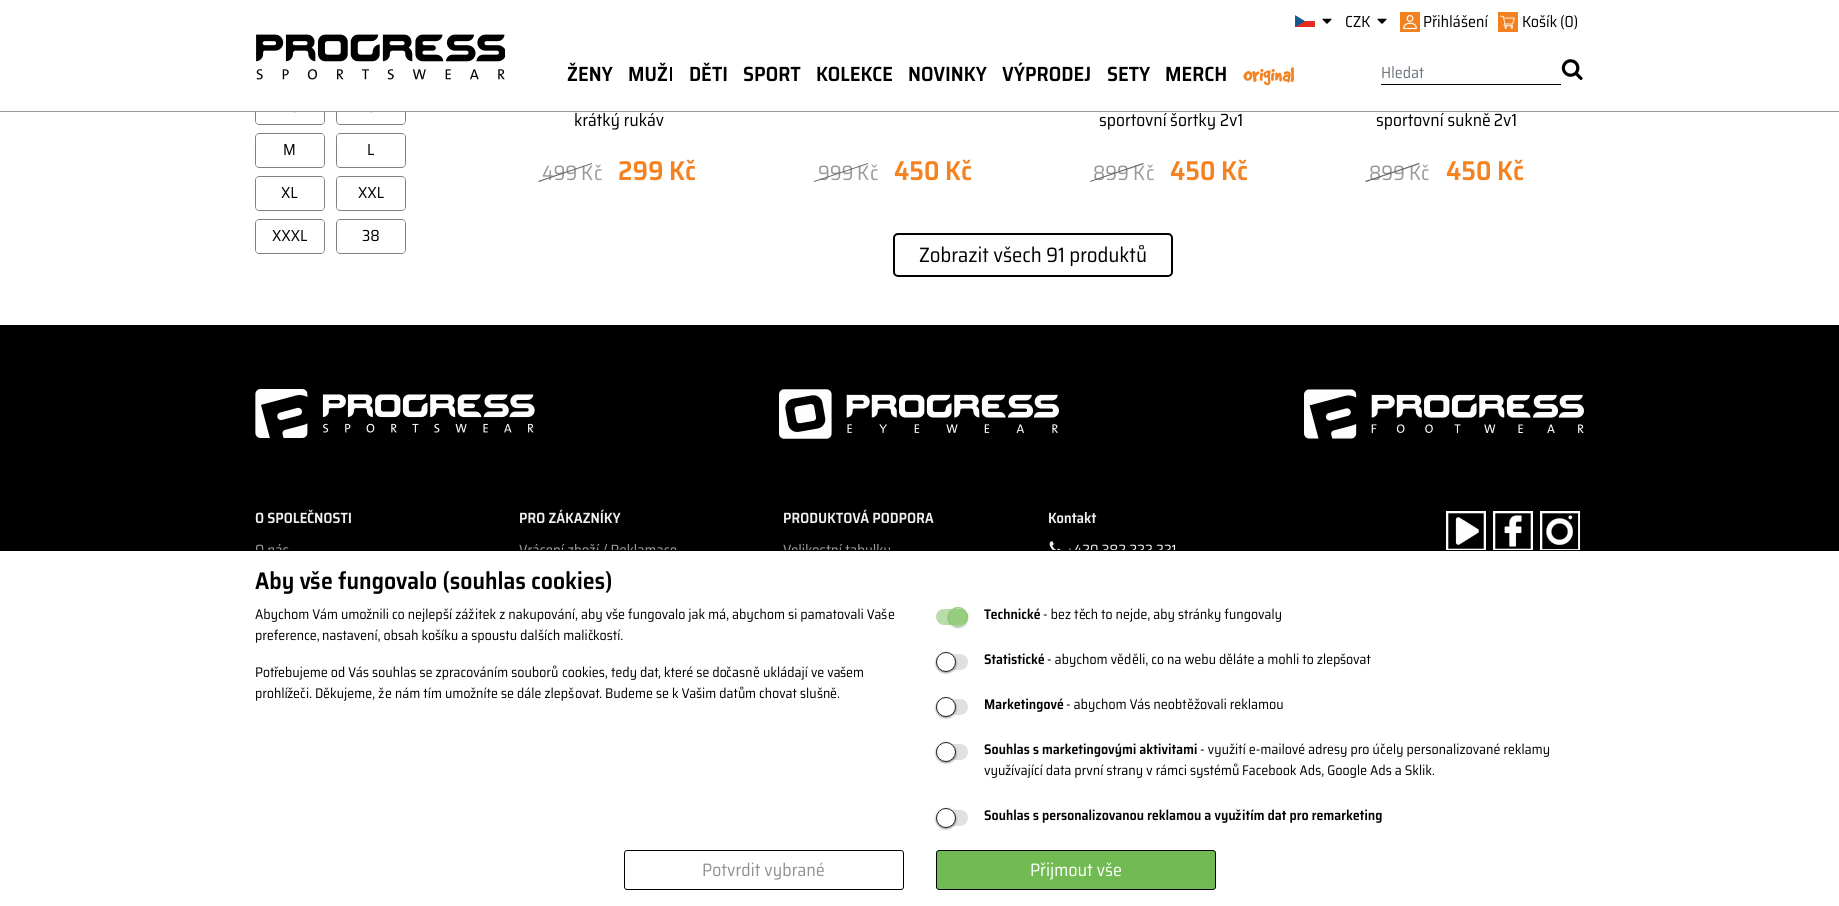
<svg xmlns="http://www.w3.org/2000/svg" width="1839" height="906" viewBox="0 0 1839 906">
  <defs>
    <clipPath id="clip1"><path d="M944 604H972V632H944ZM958 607C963.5 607 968 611.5 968 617C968 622.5 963.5 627 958 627C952.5 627 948 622.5 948 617C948 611.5 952.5 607 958 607Z" clip-rule="evenodd"/></clipPath>
  </defs>
  <rect width="100%" height="100%" fill="#fff"/>
  <path d="M260 90C257 90 255 92 255 95V120C255 123 257 125 260 125H320C323 125 325 123 325 120V95C325 92 323 90 320 90ZM259 91C257 91 256 92 256 94V121C256 123 257 124 259 124H321C323 124 324 123 324 121V94C324 92 323 91 321 91Z" fill="#808080" fill-rule="evenodd"/>
  <path d="M341 90C338 90 336 92 336 95V120C336 123 338 125 341 125H401C404 125 406 123 406 120V95C406 92 404 90 401 90ZM340 91C338 91 337 92 337 94V121C337 123 338 124 340 124H402C404 124 405 123 405 121V94C405 92 404 91 402 91Z" fill="#808080" fill-rule="evenodd"/>
  <path d="M255 90h151v21H255z" fill="#fff"/>
  <path d="M0 111h1839v1H0z" fill="#999"/>
  <image x="1295" y="15" width="20" height="12" href="img/1.png"/>
  <image x="1322" y="18" width="10" height="6" href="img/2.png"/>
  <image x="1346" y="15" width="24" height="13" href="img/3.png"/>
  <image x="1377" y="18" width="10" height="6" href="img/2.png"/>
  <image x="1400" y="12" width="20" height="20" href="img/4.png"/>
  <image x="1424" y="16" width="8" height="11" href="img/5.png"/>
  <image x="1432" y="15" width="5" height="12" href="img/6.png"/>
  <image x="1438" y="15" width="22" height="13" href="img/7.png"/>
  <image x="1461" y="15" width="7" height="13" href="img/8.png"/>
  <image x="1468" y="15" width="21" height="13" href="img/9.png"/>
  <image x="1498" y="12" width="20" height="20" href="img/10.png"/>
  <image x="1523" y="16" width="16" height="12" href="img/11.png"/>
  <image x="1539" y="15" width="7" height="13" href="img/8.png"/>
  <image x="1547" y="15" width="10" height="12" href="img/12.png"/>
  <image x="1561" y="15" width="17" height="15" href="img/13.png"/>
  <image x="256" y="34" width="249" height="46" href="img/14.png"/>
  <image x="567" y="62" width="11" height="19" href="img/15.png"/>
  <image x="579" y="66" width="34" height="15" href="img/16.png"/>
  <image x="629" y="66" width="27" height="16" href="img/17.png"/>
  <image x="657" y="62" width="11" height="19" href="img/15.png"/>
  <path d="M670 67h2v14H670z" fill="#000"/>
  <image x="690" y="66" width="11" height="15" href="img/18.png"/>
  <image x="702" y="62" width="9" height="19" href="img/19.png"/>
  <image x="712" y="66" width="15" height="15" href="img/20.png"/>
  <image x="743" y="66" width="58" height="16" href="img/21.png"/>
  <image x="817" y="66" width="75" height="16" href="img/22.png"/>
  <image x="909" y="66" width="78" height="16" href="img/23.png"/>
  <image x="1002" y="62" width="88" height="20" href="img/24.png"/>
  <image x="1107" y="66" width="43" height="16" href="img/25.png"/>
  <image x="1166" y="66" width="60" height="16" href="img/26.png"/>
  <path d="M1381 84h180v1H1381z" fill="#000"/>
  <image x="1382" y="66" width="42" height="13" href="img/27.png"/>
  <image x="1561" y="59" width="22" height="21" href="img/28.png"/>
  <image x="293" y="112" width="3" height="1" href="img/29.png"/>
  <image x="369" y="112" width="4" height="1" href="img/30.png"/>
  <path d="M260 133C257 133 255 135 255 138V163C255 166 257 168 260 168H320C323 168 325 166 325 163V138C325 135 323 133 320 133ZM259 134C257 134 256 135 256 137V164C256 166 257 167 259 167H321C323 167 324 166 324 164V137C324 135 323 134 321 134Z" fill="#808080" fill-rule="evenodd"/>
  <image x="284" y="144" width="11" height="11" href="img/31.png"/>
  <path d="M341 133C338 133 336 135 336 138V163C336 166 338 168 341 168H401C404 168 406 166 406 163V138C406 135 404 133 401 133ZM340 134C338 134 337 135 337 137V164C337 166 338 167 340 167H402C404 167 405 166 405 164V137C405 135 404 134 402 134Z" fill="#808080" fill-rule="evenodd"/>
  <image x="368" y="144" width="6" height="11" href="img/32.png"/>
  <path d="M260 176C257 176 255 178 255 181V206C255 209 257 211 260 211H320C323 211 325 209 325 206V181C325 178 323 176 320 176ZM259 177C257 177 256 178 256 180V207C256 209 257 210 259 210H321C323 210 324 209 324 207V180C324 178 323 177 321 177Z" fill="#808080" fill-rule="evenodd"/>
  <image x="281" y="187" width="17" height="11" href="img/33.png"/>
  <path d="M341 176C338 176 336 178 336 181V206C336 209 338 211 341 211H401C404 211 406 209 406 206V181C406 178 404 176 401 176ZM340 177C338 177 337 178 337 180V207C337 209 338 210 340 210H402C404 210 405 209 405 207V180C405 178 404 177 402 177Z" fill="#808080" fill-rule="evenodd"/>
  <image x="358" y="187" width="26" height="11" href="img/34.png"/>
  <path d="M260 219C257 219 255 221 255 224V249C255 252 257 254 260 254H320C323 254 325 252 325 249V224C325 221 323 219 320 219ZM259 220C257 220 256 221 256 223V250C256 252 257 253 259 253H321C323 253 324 252 324 250V223C324 221 323 220 321 220Z" fill="#808080" fill-rule="evenodd"/>
  <image x="272" y="230" width="36" height="11" href="img/35.png"/>
  <path d="M341 219C338 219 336 221 336 224V249C336 252 338 254 341 254H401C404 254 406 252 406 249V224C406 221 404 219 401 219ZM340 220C338 220 337 221 337 223V250C337 252 338 253 340 253H402C404 253 405 252 405 250V223C405 221 404 220 402 220Z" fill="#808080" fill-rule="evenodd"/>
  <image x="362" y="229" width="17" height="13" href="img/36.png"/>
  <image x="575" y="112" width="89" height="18" href="img/37.png"/>
  <image x="542" y="165" width="34" height="16" href="img/39.png"/>
  <image x="582" y="165" width="11" height="15" href="img/40.png"/>
  <path d="M538 181L592 163V164L539 182Z" fill="#666"/>
  <image x="595" y="164" width="7" height="17" href="img/38.png"/>
  <image x="619" y="161" width="44" height="20" href="img/41.png"/>
  <image x="670" y="161" width="15" height="19" href="img/42.png"/>
  <image x="686" y="159" width="9" height="22" href="img/43.png"/>
  <image x="819" y="165" width="34" height="16" href="img/44.png"/>
  <image x="858" y="165" width="11" height="15" href="img/40.png"/>
  <path d="M814 181L868 163V164L814 182Z" fill="#666"/>
  <image x="871" y="164" width="7" height="17" href="img/38.png"/>
  <image x="894" y="161" width="45" height="20" href="img/45.png"/>
  <image x="946" y="161" width="15" height="19" href="img/42.png"/>
  <image x="962" y="159" width="9" height="22" href="img/43.png"/>
  <image x="1099" y="112" width="68" height="18" href="img/46.png"/>
  <image x="1170" y="112" width="7" height="15" href="img/47.png"/>
  <image x="1179" y="112" width="63" height="18" href="img/48.png"/>
  <image x="1094" y="165" width="34" height="16" href="img/49.png"/>
  <image x="1134" y="165" width="11" height="15" href="img/40.png"/>
  <path d="M1090 181L1143 163L1144 164L1090 182Z" fill="#666"/>
  <image x="1147" y="164" width="7" height="17" href="img/38.png"/>
  <image x="1170" y="161" width="45" height="20" href="img/45.png"/>
  <image x="1222" y="161" width="15" height="19" href="img/42.png"/>
  <image x="1238" y="159" width="9" height="22" href="img/43.png"/>
  <image x="1376" y="112" width="105" height="18" href="img/50.png"/>
  <image x="1483" y="112" width="7" height="15" href="img/51.png"/>
  <image x="1494" y="113" width="22" height="13" href="img/52.png"/>
  <image x="1370" y="165" width="34" height="16" href="img/49.png"/>
  <image x="1410" y="165" width="11" height="15" href="img/40.png"/>
  <path d="M1365 181L1419 163L1420 164L1366 182Z" fill="#666"/>
  <image x="1422" y="164" width="7" height="17" href="img/38.png"/>
  <image x="1446" y="161" width="45" height="20" href="img/45.png"/>
  <image x="1498" y="161" width="15" height="19" href="img/42.png"/>
  <image x="1514" y="159" width="9" height="22" href="img/43.png"/>
  <rect x="894" y="234" width="278" height="42" rx="4" fill="none" stroke="#000" stroke-width="2"/>
  <image x="919" y="246" width="84" height="17" href="img/53.png"/>
  <image x="1004" y="246" width="8" height="17" href="img/54.png"/>
  <image x="1013" y="246" width="123" height="21" href="img/55.png"/>
  <image x="1137" y="245" width="9" height="18" href="img/56.png"/>
  <path d="M0 325h1839v226H0z" fill="#000"/>
  <image x="255" y="389" width="280" height="49" href="img/57.png"/>
  <image x="779" y="389" width="280" height="50" href="img/58.png"/>
  <image x="1304" y="389" width="280" height="50" href="img/59.png"/>
  <image x="255" y="512" width="52" height="12" href="img/60.png"/>
  <image x="307" y="509" width="7" height="15" href="img/61.png"/>
  <image x="315" y="512" width="36" height="12" href="img/62.png"/>
  <image x="256" y="543" width="33" height="7" href="img/63.png"/>
  <image x="520" y="509" width="101" height="15" href="img/64.png"/>
  <image x="519" y="543" width="70" height="7" href="img/65.png"/>
  <image x="589" y="543" width="6" height="7" href="img/66.png"/>
  <image x="597" y="543" width="80" height="7" href="img/67.png"/>
  <image x="784" y="509" width="150" height="15" href="img/68.png"/>
  <image x="783" y="543" width="107" height="7" href="img/69.png"/>
  <image x="1049" y="511" width="48" height="13" href="img/70.png"/>
  <image x="1049" y="541" width="12" height="9" href="img/71.png"/>
  <image x="1069" y="544" width="107" height="6" href="img/72.png"/>
  <image x="1446" y="511" width="40" height="39" href="img/73.png"/>
  <image x="1493" y="511" width="40" height="39" href="img/74.png"/>
  <image x="1540" y="511" width="40" height="39" href="img/75.png"/>
  <image x="255" y="571" width="56" height="23" href="img/76.png"/>
  <image x="310" y="571" width="10" height="19" href="img/77.png"/>
  <image x="322" y="571" width="289" height="23" href="img/78.png"/>
  <image x="255" y="608" width="111" height="14" href="img/79.png"/>
  <image x="366" y="608" width="6" height="11" href="img/80.png"/>
  <image x="373" y="608" width="69" height="14" href="img/81.png"/>
  <image x="443" y="608" width="6" height="12" href="img/82.png"/>
  <image x="450" y="608" width="18" height="12" href="img/83.png"/>
  <image x="468" y="608" width="6" height="11" href="img/80.png"/>
  <image x="476" y="608" width="102" height="14" href="img/84.png"/>
  <image x="581" y="608" width="31" height="14" href="img/85.png"/>
  <image x="612" y="608" width="6" height="12" href="img/82.png"/>
  <image x="618" y="608" width="263" height="14" href="img/86.png"/>
  <image x="881" y="608" width="6" height="12" href="img/82.png"/>
  <image x="888" y="611" width="7" height="9" href="img/87.png"/>
  <image x="256" y="629" width="63" height="14" href="img/88.png"/>
  <image x="323" y="629" width="112" height="13" href="img/89.png"/>
  <image x="435" y="629" width="6" height="12" href="img/82.png"/>
  <image x="442" y="629" width="95" height="14" href="img/90.png"/>
  <image x="538" y="629" width="6" height="12" href="img/82.png"/>
  <image x="545" y="629" width="42" height="12" href="img/91.png"/>
  <image x="588" y="629" width="6" height="12" href="img/92.png"/>
  <image x="594" y="629" width="29" height="12" href="img/93.png"/>
  <image x="256" y="667" width="19" height="11" href="img/94.png"/>
  <image x="274" y="666" width="5" height="11" href="img/95.png"/>
  <image x="278" y="666" width="273" height="14" href="img/96.png"/>
  <image x="552" y="665" width="6" height="13" href="img/97.png"/>
  <image x="562" y="666" width="45" height="13" href="img/98.png"/>
  <image x="611" y="666" width="115" height="14" href="img/99.png"/>
  <image x="726" y="666" width="6" height="12" href="img/92.png"/>
  <image x="732" y="669" width="20" height="9" href="img/100.png"/>
  <image x="753" y="666" width="7" height="12" href="img/101.png"/>
  <image x="764" y="666" width="76" height="14" href="img/102.png"/>
  <image x="840" y="666" width="6" height="12" href="img/82.png"/>
  <image x="846" y="669" width="17" height="9" href="img/103.png"/>
  <image x="256" y="687" width="32" height="14" href="img/104.png"/>
  <image x="287" y="687" width="6" height="11" href="img/105.png"/>
  <image x="293" y="690" width="7" height="9" href="img/87.png"/>
  <image x="300" y="687" width="6" height="12" href="img/92.png"/>
  <image x="307" y="687" width="5" height="11" href="img/106.png"/>
  <image x="316" y="688" width="7" height="10" href="img/107.png"/>
  <image x="323" y="687" width="7" height="12" href="img/101.png"/>
  <image x="331" y="687" width="44" height="14" href="img/108.png"/>
  <image x="378" y="687" width="6" height="11" href="img/80.png"/>
  <image x="385" y="687" width="85" height="12" href="img/109.png"/>
  <image x="470" y="687" width="6" height="11" href="img/80.png"/>
  <image x="477" y="687" width="91" height="14" href="img/110.png"/>
  <image x="568" y="687" width="6" height="12" href="img/82.png"/>
  <image x="575" y="688" width="27" height="11" href="img/111.png"/>
  <image x="606" y="687" width="90" height="12" href="img/112.png"/>
  <image x="696" y="687" width="6" height="12" href="img/82.png"/>
  <image x="703" y="687" width="35" height="12" href="img/113.png"/>
  <image x="739" y="686" width="6" height="13" href="img/97.png"/>
  <image x="746" y="687" width="70" height="12" href="img/114.png"/>
  <image x="817" y="687" width="6" height="12" href="img/82.png"/>
  <image x="824" y="690" width="6" height="8" href="img/115.png"/>
  <image x="830" y="687" width="7" height="12" href="img/101.png"/>
  <path d="M838 698V696.5H839V698Z" fill="#000"/>
  <rect x="936" y="609" width="32" height="16" rx="8" fill="#b9dda9"/>
  <g clip-path="url(#clip1)">
    <rect x="948" y="608" width="20" height="20" rx="10" fill="#00000040" filter="blur(1px)"/>
  </g>
  <circle cx="958" cy="617" r="10" fill="#72bb5380"/>
  <circle cx="958" cy="617" r="9.5" fill="none" stroke="#72bb5380"/>
  <image x="984" y="608" width="56" height="12" href="img/116.png"/>
  <image x="1043" y="608" width="36" height="12" href="img/117.png"/>
  <image x="1079" y="608" width="7" height="12" href="img/101.png"/>
  <image x="1085" y="608" width="196" height="14" href="img/118.png"/>
  <rect x="936" y="654" width="32" height="16" rx="8" fill="#e0e0e0"/>
  <rect x="936" y="653" width="20" height="20" rx="10" fill="#00000080" filter="blur(1px)"/>
  <circle cx="946" cy="662" r="9.5" fill="#fff" stroke="#222"/>
  <image x="984" y="653" width="61" height="12" href="img/119.png"/>
  <image x="1047" y="653" width="70" height="14" href="img/120.png"/>
  <image x="1117" y="653" width="7" height="12" href="img/101.png"/>
  <image x="1124" y="653" width="7" height="12" href="img/121.png"/>
  <image x="1132" y="653" width="7" height="12" href="img/101.png"/>
  <image x="1140" y="653" width="86" height="13" href="img/122.png"/>
  <image x="1226" y="653" width="7" height="12" href="img/101.png"/>
  <image x="1234" y="653" width="106" height="14" href="img/123.png"/>
  <image x="1340" y="653" width="6" height="12" href="img/82.png"/>
  <image x="1346" y="654" width="25" height="11" href="img/124.png"/>
  <rect x="936" y="699" width="32" height="16" rx="8" fill="#e0e0e0"/>
  <rect x="936" y="698" width="20" height="20" rx="10" fill="#00000080" filter="blur(1px)"/>
  <circle cx="946" cy="707" r="9.5" fill="#fff" stroke="#222"/>
  <image x="985" y="698" width="79" height="14" href="img/125.png"/>
  <image x="1066" y="698" width="121" height="14" href="img/126.png"/>
  <image x="1187" y="698" width="13" height="12" href="img/127.png"/>
  <image x="1200" y="698" width="83" height="12" href="img/128.png"/>
  <rect x="936" y="744" width="32" height="16" rx="8" fill="#e0e0e0"/>
  <rect x="936" y="743" width="20" height="20" rx="10" fill="#00000080" filter="blur(1px)"/>
  <circle cx="946" cy="752" r="9.5" fill="#fff" stroke="#222"/>
  <image x="984" y="743" width="213" height="14" href="img/129.png"/>
  <image x="1200" y="746" width="28" height="11" href="img/130.png"/>
  <image x="1229" y="743" width="6" height="11" href="img/80.png"/>
  <image x="1236" y="743" width="143" height="14" href="img/131.png"/>
  <image x="1380" y="743" width="6" height="12" href="img/92.png"/>
  <image x="1386" y="743" width="164" height="14" href="img/132.png"/>
  <image x="984" y="767" width="21" height="11" href="img/133.png"/>
  <image x="1005" y="764" width="6" height="11" href="img/80.png"/>
  <image x="1012" y="764" width="219" height="14" href="img/134.png"/>
  <image x="1233" y="763" width="6" height="13" href="img/97.png"/>
  <image x="1243" y="764" width="192" height="14" href="img/135.png"/>
  <rect x="936" y="810" width="32" height="16" rx="8" fill="#e0e0e0"/>
  <rect x="936" y="809" width="20" height="20" rx="10" fill="#00000080" filter="blur(1px)"/>
  <circle cx="946" cy="818" r="9.5" fill="#fff" stroke="#222"/>
  <image x="984" y="809" width="251" height="14" href="img/136.png"/>
  <image x="1235" y="809" width="6" height="11" href="img/137.png"/>
  <image x="1242" y="809" width="140" height="14" href="img/138.png"/>
  <rect x="624.5" y="850.5" width="279" height="39" rx="2.5" fill="none" stroke="#000"/>
  <image x="703" y="862" width="121" height="18" href="img/139.png"/>
  <rect x="936.5" y="850.5" width="279" height="39" rx="2.5" fill="#72bb53" stroke="#000"/>
  <image x="1031" y="863" width="9" height="13" href="img/140.png"/>
  <image x="1040" y="862" width="6" height="14" href="img/141.png"/>
  <image x="1047" y="862" width="58" height="18" href="img/142.png"/>
  <image x="1105" y="862" width="8" height="15" href="img/143.png"/>
  <image x="1114" y="866" width="7" height="11" href="img/144.png"/>
  <text x="1243" y="82" font-family="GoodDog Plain" font-size="22" font-weight="bold" fill="#f58220">Original</text>
</svg>
